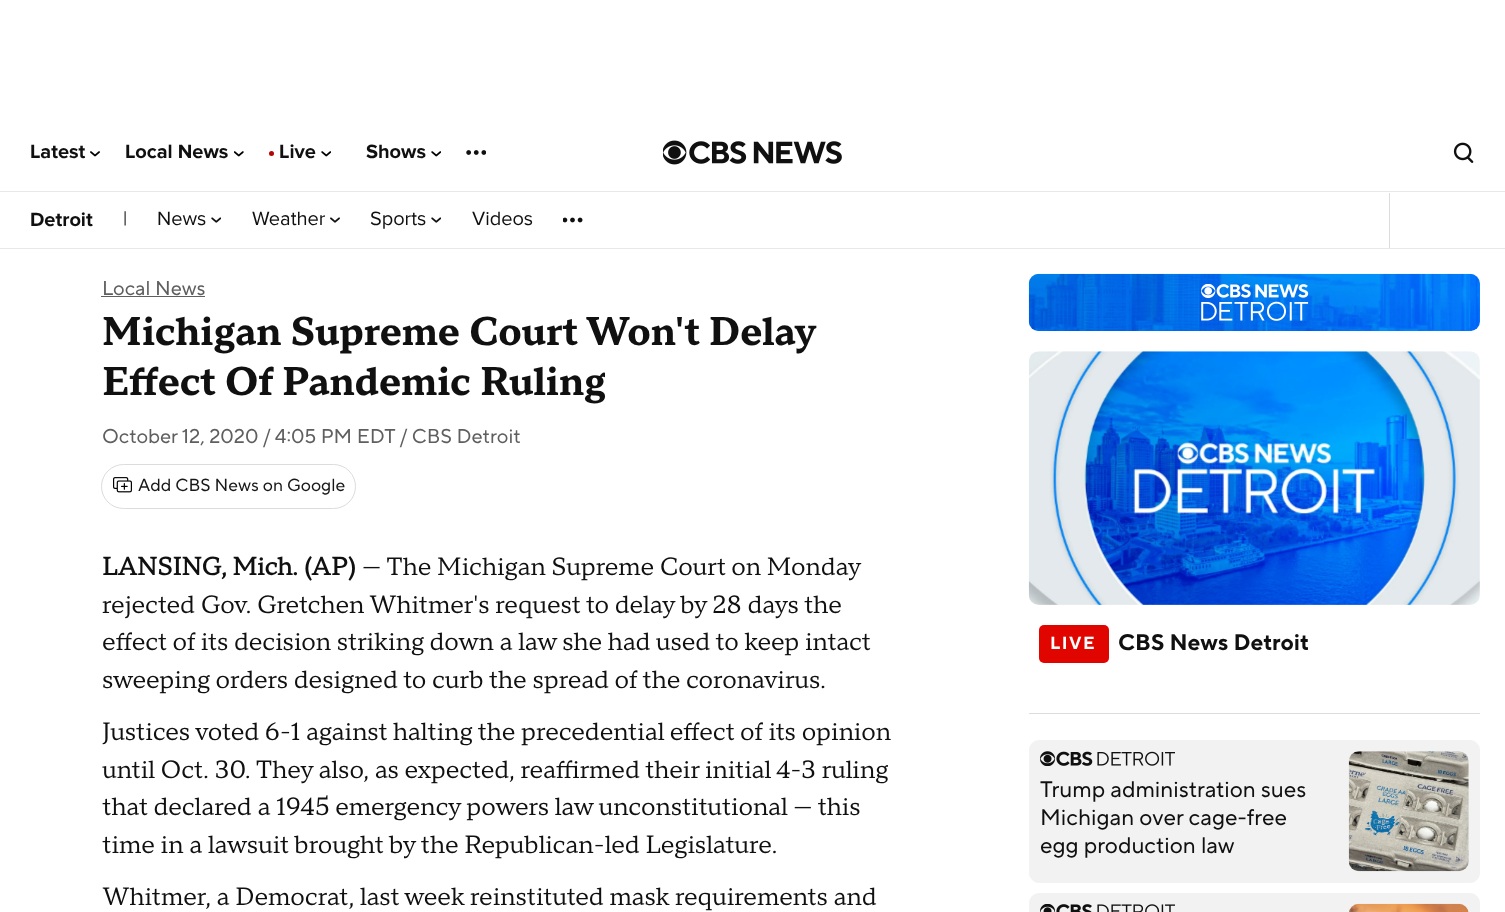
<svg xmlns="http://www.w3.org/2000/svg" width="1505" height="912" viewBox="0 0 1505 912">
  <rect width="100%" height="100%" fill="#fff"/>
  <path d="M0 191h1505v1H0z" fill="#e8e8e8"/>
  <image x="90" y="151" width="10" height="6" href="img/1.png"/>
  <image x="234" y="151" width="10" height="6" href="img/2.png"/>
  <circle cx="271.5" cy="153.5" r="2.5" fill="#b60505"/>
  <image x="321" y="151" width="10" height="6" href="img/3.png"/>
  <image x="431" y="151" width="10" height="6" href="img/3.png"/>
  <image x="466" y="150" width="20" height="5" href="img/4.png"/>
  <image x="663" y="140" width="179" height="25" href="img/5.png"/>
  <image x="1453" y="142" width="21" height="21" href="img/6.png"/>
  <path d="M0 248h1505v1H0z" fill="#e8e8e8"/>
  <image x="211" y="217" width="10" height="6" href="img/7.png"/>
  <image x="330" y="217" width="10" height="6" href="img/8.png"/>
  <image x="431" y="217" width="10" height="6" href="img/7.png"/>
  <image x="563" y="217" width="20" height="6" href="img/9.png"/>
  <path d="M1389 193h1v55H1389z" fill="#dcdcdc"/>
  <path d="M101 296h104v1H101z" fill="#5f5f5f"/>
  <rect x="101.5" y="464.5" width="254" height="44" rx="22" fill="none" stroke="#dcdcdc"/>
  <image x="113" y="477" width="19" height="16" href="img/10.png"/>
  <image x="1028" y="273" width="452" height="59" href="img/11.png"/>
  <image x="1201" y="284" width="108" height="37" href="img/12.png"/>
  <path d="M1038 331h433v1H1038z" fill="#ffffffcc"/>
  <path d="M1029 713h451v1H1029z" fill="#dcdcdc"/>
  <image x="1028" y="351" width="452" height="254" href="img/13.png"/>
  <rect x="1039" y="625" width="70" height="38" rx="5" fill="#e10500"/>
  <rect x="1029.5" y="740.5" width="450" height="142" rx="9.5" fill="#f2f2f2" stroke="#f2f2f2"/>
  <image x="1040" y="751" width="135" height="15" href="img/14.png"/>
  <image x="1348" y="751" width="121" height="121" href="img/15.png"/>
  <rect x="1029.5" y="893.5" width="450" height="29" rx="9.5" fill="#f2f2f2" stroke="#f2f2f2"/>
  <image x="1040" y="904" width="135" height="8" href="img/16.png"/>
  <image x="1349" y="903" width="120" height="9" href="img/17.png"/>
  <g font-family="Proxima Nova" font-size="20" font-weight="bold" fill="#101010">
    <text x="30" y="158">Latest</text>
    <text x="125" y="158">Local News</text>
    <text x="279" y="158">Live</text>
    <text x="366" y="158">Shows</text>
    <text x="30" y="226">Detroit</text>
  </g>
  <g font-family="Proxima Nova" font-size="20" fill="#101010">
    <text x="123" y="225">|</text>
    <text x="157" y="225">News</text>
    <text x="252" y="225">Weather</text>
    <text x="370" y="225">Sports</text>
    <text x="472" y="225">Videos</text>
  </g>
  <text x="102" y="295" font-family="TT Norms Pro" font-size="20" fill="#5f5f5f">Local News</text>
  <g font-family="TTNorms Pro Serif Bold" font-size="40" font-weight="bold" fill="#101010">
    <text x="102" y="345">Michigan Supreme Court Won't Delay</text>
    <text x="102" y="395">Effect Of Pandemic Ruling</text>
  </g>
  <text x="102" y="443" font-family="TT Norms Pro" font-size="20" fill="#5f5f5f">October 12, 2020 / 4:05 PM EDT / CBS Detroit</text>
  <text x="138" y="491" font-family="TT Norms Pro" font-size="17.5" fill="#181818">Add CBS News on Google</text>
  <text x="102" y="575" font-family="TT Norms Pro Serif" font-size="25" font-weight="bold" fill="#101010">LANSING, Mich. (AP)</text>
  <g font-family="TT Norms Pro Serif" font-size="25" fill="#101010">
    <text x="362" y="575">— The Michigan Supreme Court on Monday</text>
    <text x="102" y="613">rejected Gov. Gretchen Whitmer's request to delay by 28 days the</text>
    <text x="102" y="650">effect of its decision striking down a law she had used to keep intact</text>
    <text x="102" y="688">sweeping orders designed to curb the spread of the coronavirus.</text>
    <text x="102" y="740">Justices voted 6-1 against halting the precedential effect of its opinion</text>
    <text x="102" y="778">until Oct. 30. They also, as expected, reaffirmed their initial 4-3 ruling</text>
    <text x="102" y="815">that declared a 1945 emergency powers law unconstitutional — this</text>
    <text x="102" y="853">time in a lawsuit brought by the Republican-led Legislature.</text>
    <text x="102" y="905">Whitmer, a Democrat, last week reinstituted mask requirements and</text>
  </g>
  <text x="1050" y="649" font-family="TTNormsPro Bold" font-size="17.5" font-weight="bold" letter-spacing="1.5" fill="#fff">LIVE</text>
  <text x="1118" y="650" font-family="TTNormsPro Bold" font-size="22.5" font-weight="bold" fill="#101010">CBS News Detroit</text>
  <g font-family="TT Norms Pro" font-size="22.5" fill="#101010">
    <text x="1040" y="797">Trump administration sues</text>
    <text x="1040" y="825">Michigan over cage-free</text>
    <text x="1040" y="853">egg production law</text>
  </g>
</svg>
